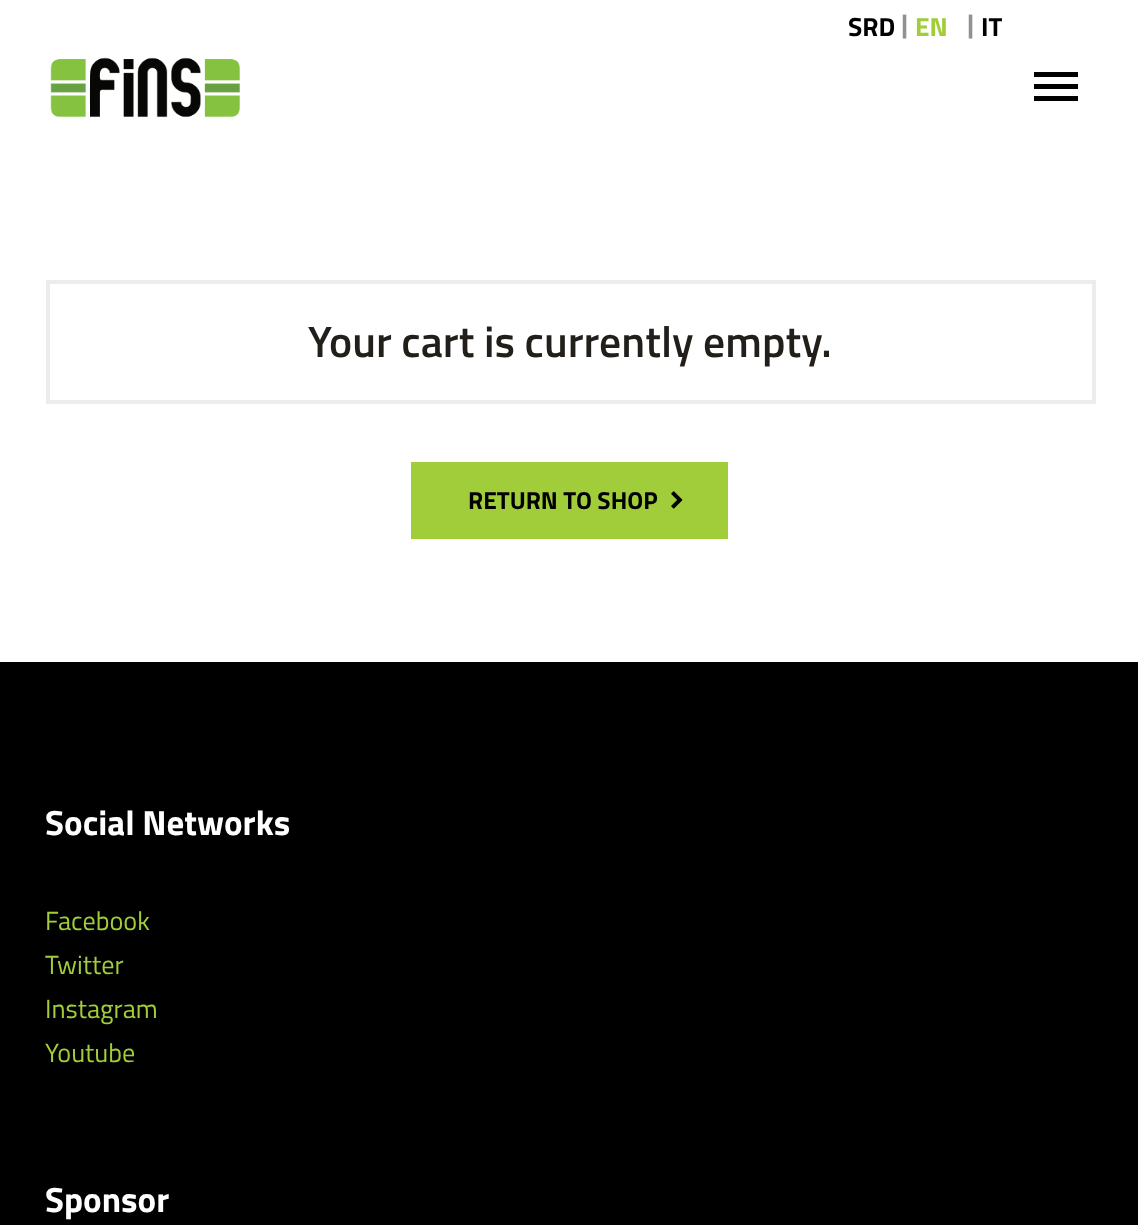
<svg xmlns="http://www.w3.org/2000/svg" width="1138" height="1225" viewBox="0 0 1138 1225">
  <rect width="100%" height="100%" fill="#fff"/>
  <path d="M1034 101V96H1078V101ZM1034 89V84H1078V89ZM1034 72H1078V77H1034Z" fill="#000"/>
  <image x="50" y="57" width="190" height="61" href="img/1.png"/>
  <path d="M48 282h1046v120H48z" fill="none" stroke="#edecec" stroke-width="4"/>
  <path d="M411 462h317v77H411z" fill="#a1cd3a"/>
  <image x="671" y="491" width="12" height="18" href="img/2.png"/>
  <path d="M0 662h1138v563H0z" fill="#000"/>
  <text x="848" y="36" font-family="Titillium Web" font-size="26.25" font-weight="bold" fill="#000">SRD</text>
  <text x="901" y="33" font-family="Titillium Web" font-size="26.25" font-weight="bold" fill="#929191">|</text>
  <text x="915" y="36" font-family="Titillium Web" font-size="26.25" font-weight="bold" fill="#a1cd3a">EN</text>
  <text x="967" y="33" font-family="Titillium Web" font-size="26.25" font-weight="bold" fill="#929191">|</text>
  <text x="981" y="36" font-family="Titillium Web" font-size="26.25" font-weight="bold" fill="#000">IT</text>
  <text x="308" y="357" font-family="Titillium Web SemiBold" font-size="43.75" font-weight="600" fill="#221f1b">Your cart is currently empty.</text>
  <text x="468" y="509" font-family="Titillium Web" font-size="24.5" font-weight="bold" fill="#000">RETURN TO SHOP</text>
  <text x="45" y="835" font-family="Titillium Web" font-size="35" font-weight="bold" fill="#fff">Social Networks</text>
  <g font-family="Titillium Web" font-size="26.25" fill="#a1cd3a">
    <text x="45" y="930">Facebook</text>
    <text x="45" y="974">Twitter</text>
    <text x="45" y="1018">Instagram</text>
    <text x="45" y="1062">Youtube</text>
  </g>
  <text x="45" y="1212" font-family="Titillium Web" font-size="35" font-weight="bold" fill="#fff">Sponsor</text>
</svg>
